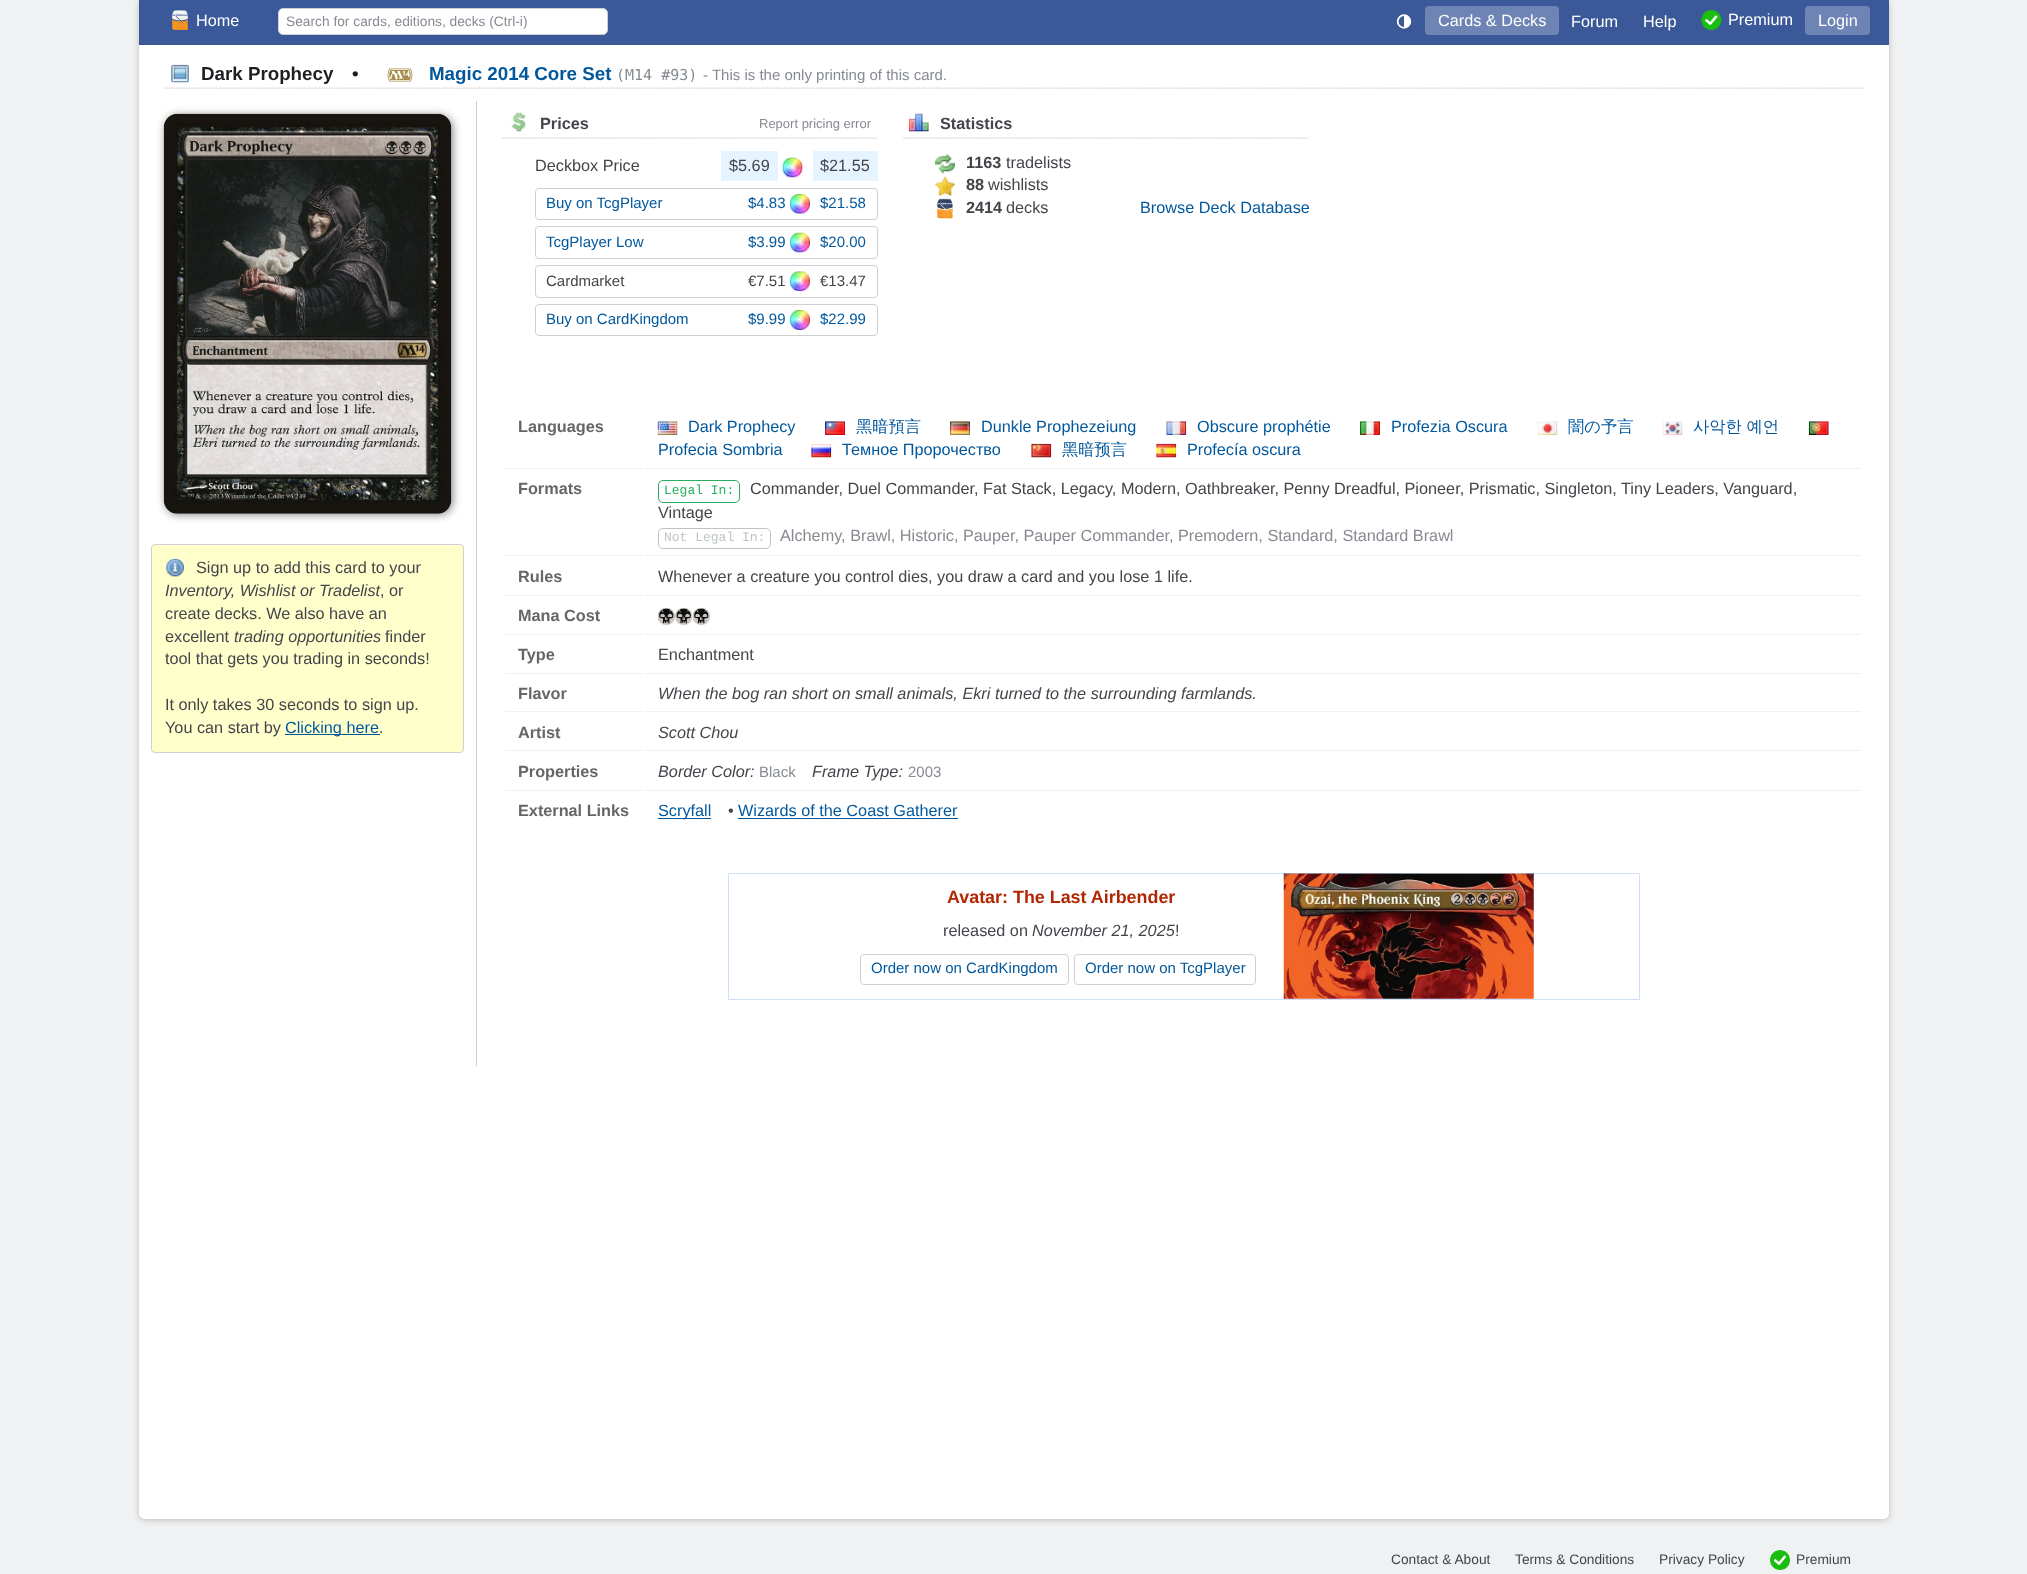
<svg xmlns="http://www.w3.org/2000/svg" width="2027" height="1574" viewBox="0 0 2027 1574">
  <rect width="100%" height="100%" fill="#f0f1f2"/>
  <rect x="139" y="1" width="1750" height="1519" rx="6" fill="#bbb" filter="blur(3px)"/>
  <path d="M139 0H1889V1513C1889 1516.5 1886.5 1519 1883 1519H145C141.5 1519 139 1516.5 139 1513Z" fill="#fff"/>
  <path d="M139 0h1750v45H139z" fill="#3b5998"/>
  <image x="172" y="10" width="16" height="20" href="img/1.png"/>
  <rect x="278.5" y="8.5" width="329" height="26" rx="4.5" fill="#fff" stroke="#ced0d6"/>
  <image x="1396" y="14" width="16" height="15" href="img/2.png"/>
  <rect x="1425" y="6" width="134" height="29" rx="4" fill="#6d84b4"/>
  <image x="1701" y="10" width="21" height="20" href="img/3.png"/>
  <rect x="1805" y="6" width="65" height="29" rx="4" fill="#6d84b4"/>
  <image x="164" y="87" width="1700" height="2" href="img/4.png"/>
  <image x="171" y="64" width="18" height="19" href="img/5.png"/>
  <image x="387" y="68" width="26" height="14" href="img/6.png"/>
  <path d="M476 101h1v965H476z" fill="#ced0d6"/>
  <rect x="165" y="115" width="288" height="400" rx="14" fill="#00000073" filter="blur(4px)"/>
  <image x="163" y="113" width="289" height="401" href="img/7.png"/>
  <rect x="151.5" y="544.5" width="312" height="208" rx="3.5" fill="#ffc" stroke="#ced0d6"/>
  <image x="166" y="558" width="18" height="19" href="img/8.png"/>
  <path d="M285 734h95v1H285z" fill="#00579c"/>
  <image x="502" y="137" width="376" height="2" href="img/9.png"/>
  <image x="511" y="112" width="15" height="20" href="img/10.png"/>
  <path d="M721 151h57v30H721z" fill="#e6f4ff"/>
  <image x="782" y="157" width="21" height="21" href="img/11.png"/>
  <path d="M813 151h65v30H813z" fill="#e6f4ff"/>
  <rect x="535.5" y="188.5" width="342" height="31" rx="3.5" fill="none" stroke="#ced0d6"/>
  <image x="790" y="193" width="20" height="21" href="img/12.png"/>
  <rect x="535.5" y="226.5" width="342" height="32" rx="3.5" fill="none" stroke="#ced0d6"/>
  <image x="790" y="232" width="20" height="21" href="img/13.png"/>
  <rect x="535.5" y="265.5" width="342" height="32" rx="3.5" fill="none" stroke="#ced0d6"/>
  <image x="790" y="271" width="20" height="21" href="img/14.png"/>
  <rect x="535.5" y="304.5" width="342" height="31" rx="3.5" fill="none" stroke="#ced0d6"/>
  <image x="790" y="310" width="20" height="20" href="img/15.png"/>
  <image x="903" y="137" width="406" height="2" href="img/16.png"/>
  <image x="908" y="113" width="21" height="19" href="img/17.png"/>
  <image x="935" y="154" width="20" height="20" href="img/18.png"/>
  <image x="935" y="176" width="20" height="20" href="img/19.png"/>
  <image x="937" y="198" width="16" height="21" href="img/20.png"/>
  <path d="M505 468h138v1H505z" fill="#f0f1f2"/>
  <path d="M645 468h1216v1H645z" fill="#f0f1f2"/>
  <image x="657" y="421" width="21" height="14" href="img/21.png"/>
  <image x="825" y="421" width="20" height="14" href="img/22.png"/>
  <image x="950" y="421" width="20" height="14" href="img/23.png"/>
  <image x="1166" y="421" width="21" height="14" href="img/24.png"/>
  <image x="1360" y="421" width="20" height="14" href="img/25.png"/>
  <image x="1537" y="421" width="21" height="14" href="img/26.png"/>
  <image x="1662" y="421" width="21" height="14" href="img/27.png"/>
  <image x="1808" y="421" width="21" height="14" href="img/28.png"/>
  <image x="811" y="444" width="21" height="14" href="img/29.png"/>
  <image x="1031" y="443" width="21" height="15" href="img/30.png"/>
  <image x="1156" y="443" width="21" height="15" href="img/31.png"/>
  <path d="M505 555h138v1H505z" fill="#f0f1f2"/>
  <path d="M645 555h1216v1H645z" fill="#f0f1f2"/>
  <rect x="658.5" y="480.5" width="81" height="22" rx="4.5" fill="none" stroke="#27ae60"/>
  <rect x="658.5" y="528.5" width="112" height="20" rx="4.5" fill="none" stroke="#bdc3c7"/>
  <path d="M505 595h138v1H505z" fill="#f0f1f2"/>
  <path d="M645 595h1216v1H645z" fill="#f0f1f2"/>
  <path d="M505 634h138v1H505z" fill="#f0f1f2"/>
  <path d="M645 634h1216v1H645z" fill="#f0f1f2"/>
  <image x="657" y="607" width="18" height="18" href="img/32.png"/>
  <image x="675" y="607" width="18" height="18" href="img/33.png"/>
  <image x="692" y="607" width="18" height="18" href="img/34.png"/>
  <path d="M505 673h138v1H505z" fill="#f0f1f2"/>
  <path d="M645 673h1216v1H645z" fill="#f0f1f2"/>
  <path d="M505 711h138v1H505z" fill="#f0f1f2"/>
  <path d="M645 711h1216v1H645z" fill="#f0f1f2"/>
  <path d="M505 750h138v1H505z" fill="#f0f1f2"/>
  <path d="M645 750h1216v1H645z" fill="#f0f1f2"/>
  <path d="M505 790h138v1H505z" fill="#f0f1f2"/>
  <path d="M645 790h1216v1H645z" fill="#f0f1f2"/>
  <path d="M658 818h53v1H658z" fill="#00579c"/>
  <path d="M738 818h220v1H738z" fill="#00579c"/>
  <path d="M728.5 873.5h911v126H728.5z" fill="none" stroke="#d1dffc"/>
  <image x="1283" y="873" width="251" height="1" href="img/35.png"/>
  <rect x="860.5" y="954.5" width="208" height="30" rx="3.5" fill="none" stroke="#ced0d6"/>
  <rect x="1074.5" y="954.5" width="181" height="30" rx="3.5" fill="none" stroke="#ced0d6"/>
  <image x="1283" y="873" width="251" height="126" href="img/36.png"/>
  <image x="1770" y="1550" width="20" height="20" href="img/37.png"/>
  <text x="196" y="26" font-family="Liberation Sans" font-size="16.25" fill="#fff">Home</text>
  <text x="286" y="26" font-family="Liberation Sans" font-size="13.75" fill="#868a91">Search for cards, editions, decks (Ctrl-i)</text>
  <g font-family="Liberation Sans" font-size="16.25" fill="#fff">
    <text x="1438" y="26">Cards &amp; Decks</text>
    <text x="1571" y="27">Forum</text>
    <text x="1643" y="27">Help</text>
    <text x="1728" y="25">Premium</text>
    <text x="1818" y="26">Login</text>
  </g>
  <g font-family="Liberation Sans" font-size="18.75" font-weight="bold" fill="#1e1f22">
    <text x="201" y="80">Dark Prophecy</text>
    <text x="352" y="80">•</text>
  </g>
  <text x="429" y="80" font-family="Liberation Sans" font-size="18.75" font-weight="bold" fill="#00579c">Magic 2014 Core Set</text>
  <text x="616" y="80" font-family="DejaVu Sans Mono" font-size="15" fill="#868a91">(M14 #93)</text>
  <text x="703" y="80" font-family="Liberation Sans" font-size="15" fill="#868a91">- This is the only printing of this card.</text>
  <text x="196" y="573" font-family="Liberation Sans" font-size="16.25" fill="#43454a">Sign up to add this card to your</text>
  <text x="165" y="596" font-family="Liberation Sans" font-size="16.25" font-style="italic" fill="#43454a">Inventory, Wishlist or Tradelist</text>
  <g font-family="Liberation Sans" font-size="16.25" fill="#43454a">
    <text x="380" y="596">, or</text>
    <text x="165" y="619">create decks. We also have an</text>
    <text x="165" y="642">excellent</text>
  </g>
  <text x="234" y="642" font-family="Liberation Sans" font-size="16.25" font-style="italic" fill="#43454a">trading opportunities</text>
  <g font-family="Liberation Sans" font-size="16.25" fill="#43454a">
    <text x="385" y="642">finder</text>
    <text x="165" y="664">tool that gets you trading in seconds!</text>
    <text x="165" y="710">It only takes 30 seconds to sign up.</text>
    <text x="165" y="733">You can start by</text>
  </g>
  <text x="285" y="733" font-family="Liberation Sans" font-size="16.25" fill="#00579c">Clicking here</text>
  <text x="379" y="733" font-family="Liberation Sans" font-size="16.25" fill="#43454a">.</text>
  <text x="540" y="129" font-family="Liberation Sans" font-size="16.25" font-weight="bold" fill="#43454a">Prices</text>
  <text x="759" y="128" font-family="Liberation Sans" font-size="13" fill="#868a91">Report pricing error</text>
  <g font-family="Liberation Sans" font-size="16.25" fill="#43454a">
    <text x="535" y="171">Deckbox Price</text>
    <text x="729" y="171">$5.69</text>
    <text x="820" y="171">$21.55</text>
  </g>
  <g font-family="Liberation Sans" font-size="15" fill="#00579c">
    <text x="546" y="208">Buy on TcgPlayer</text>
    <text x="748" y="208">$4.83</text>
    <text x="820" y="208">$21.58</text>
    <text x="546" y="247">TcgPlayer Low</text>
    <text x="748" y="247">$3.99</text>
    <text x="820" y="247">$20.00</text>
  </g>
  <g font-family="Liberation Sans" font-size="15" fill="#43454a">
    <text x="546" y="286">Cardmarket</text>
    <text x="748" y="286">€7.51</text>
    <text x="820" y="286">€13.47</text>
  </g>
  <g font-family="Liberation Sans" font-size="15" fill="#00579c">
    <text x="546" y="324">Buy on CardKingdom</text>
    <text x="748" y="324">$9.99</text>
    <text x="820" y="324">$22.99</text>
  </g>
  <g font-family="Liberation Sans" font-size="16.25" font-weight="bold" fill="#43454a">
    <text x="940" y="129">Statistics</text>
    <text x="966" y="168">1163</text>
  </g>
  <text x="1006" y="168" font-family="Liberation Sans" font-size="16.25" fill="#43454a">tradelists</text>
  <text x="966" y="190" font-family="Liberation Sans" font-size="16.25" font-weight="bold" fill="#43454a">88</text>
  <text x="988" y="190" font-family="Liberation Sans" font-size="16.25" fill="#43454a">wishlists</text>
  <text x="966" y="213" font-family="Liberation Sans" font-size="16.25" font-weight="bold" fill="#43454a">2414</text>
  <text x="1006" y="213" font-family="Liberation Sans" font-size="16.25" fill="#43454a">decks</text>
  <text x="1140" y="213" font-family="Liberation Sans" font-size="16.25" fill="#00579c">Browse Deck Database</text>
  <text x="518" y="432" font-family="Liberation Sans" font-size="16.25" font-weight="bold" fill="#666">Languages</text>
  <text x="688" y="432" font-family="Liberation Sans" font-size="16.25" fill="#00579c">Dark Prophecy</text>
  <text x="856" y="432" font-family="WenQuanYi Zen Hei" font-size="16.25" font-weight="500" fill="#00579c">黑暗預言</text>
  <g font-family="Liberation Sans" font-size="16.25" fill="#00579c">
    <text x="981" y="432">Dunkle Prophezeiung</text>
    <text x="1197" y="432">Obscure prophétie</text>
    <text x="1391" y="432">Profezia Oscura</text>
  </g>
  <g font-family="WenQuanYi Zen Hei" font-size="16.25" font-weight="500" fill="#00579c">
    <text x="1568" y="432">闇の予言</text>
    <text x="1693" y="432">사악한 예언</text>
  </g>
  <g font-family="Liberation Sans" font-size="16.25" fill="#00579c">
    <text x="658" y="455">Profecia Sombria</text>
    <text x="842" y="455">Темное Пророчество</text>
  </g>
  <text x="1062" y="455" font-family="WenQuanYi Zen Hei" font-size="16.25" font-weight="500" fill="#00579c">黑暗预言</text>
  <text x="1187" y="455" font-family="Liberation Sans" font-size="16.25" fill="#00579c">Profecía oscura</text>
  <text x="518" y="494" font-family="Liberation Sans" font-size="16.25" font-weight="bold" fill="#666">Formats</text>
  <text x="664" y="494" font-family="Liberation Mono" font-size="13" fill="#27ae60">Legal In:</text>
  <g font-family="Liberation Sans" font-size="16.25" fill="#43454a">
    <text x="750" y="494">Commander, Duel Commander, Fat Stack, Legacy, Modern, Oathbreaker, Penny Dreadful, Pioneer, Prismatic, Singleton, Tiny Leaders, Vanguard,</text>
    <text x="658" y="518">Vintage</text>
  </g>
  <text x="664" y="541" font-family="Liberation Mono" font-size="13" fill="#bdc3c7">Not Legal In:</text>
  <text x="780" y="541" font-family="Liberation Sans" font-size="16.25" fill="#868a91">Alchemy, Brawl, Historic, Pauper, Pauper Commander, Premodern, Standard, Standard Brawl</text>
  <text x="518" y="582" font-family="Liberation Sans" font-size="16.25" font-weight="bold" fill="#666">Rules</text>
  <text x="658" y="582" font-family="Liberation Sans" font-size="16.25" fill="#43454a">Whenever a creature you control dies, you draw a card and you lose 1 life.</text>
  <g font-family="Liberation Sans" font-size="16.25" font-weight="bold" fill="#666">
    <text x="518" y="621">Mana Cost</text>
    <text x="518" y="660">Type</text>
  </g>
  <text x="658" y="660" font-family="Liberation Sans" font-size="16.25" fill="#43454a">Enchantment</text>
  <text x="518" y="699" font-family="Liberation Sans" font-size="16.25" font-weight="bold" fill="#666">Flavor</text>
  <text x="658" y="699" font-family="Liberation Sans" font-size="16.25" font-style="italic" fill="#43454a">When the bog ran short on small animals, Ekri turned to the surrounding farmlands.</text>
  <text x="518" y="738" font-family="Liberation Sans" font-size="16.25" font-weight="bold" fill="#666">Artist</text>
  <text x="658" y="738" font-family="Liberation Sans" font-size="16.25" font-style="italic" fill="#43454a">Scott Chou</text>
  <text x="518" y="777" font-family="Liberation Sans" font-size="16.25" font-weight="bold" fill="#666">Properties</text>
  <text x="658" y="777" font-family="Liberation Sans" font-size="16.25" font-style="italic" fill="#43454a">Border Color:</text>
  <text x="759" y="777" font-family="Liberation Sans" font-size="15" fill="#868a91">Black</text>
  <text x="812" y="777" font-family="Liberation Sans" font-size="16.25" font-style="italic" fill="#43454a">Frame Type:</text>
  <text x="908" y="777" font-family="Liberation Sans" font-size="15" fill="#868a91">2003</text>
  <text x="518" y="816" font-family="Liberation Sans" font-size="16.25" font-weight="bold" fill="#666">External Links</text>
  <text x="658" y="816" font-family="Liberation Sans" font-size="16.25" fill="#00579c">Scryfall</text>
  <text x="728" y="816" font-family="Liberation Sans" font-size="16.25" fill="#43454a">•</text>
  <text x="738" y="816" font-family="Liberation Sans" font-size="16.25" fill="#00579c">Wizards of the Coast Gatherer</text>
  <text x="947" y="903" font-family="Liberation Sans" font-size="17.9" font-weight="bold" fill="#b12704">Avatar: The Last Airbender</text>
  <text x="943" y="936" font-family="Liberation Sans" font-size="16.25" fill="#43454a">released on</text>
  <text x="1032" y="936" font-family="Liberation Sans" font-size="16.25" font-style="italic" fill="#43454a">November 21, 2025</text>
  <text x="1175" y="936" font-family="Liberation Sans" font-size="16.25" fill="#43454a">!</text>
  <g font-family="Liberation Sans" font-size="15" fill="#00579c">
    <text x="871" y="973">Order now on CardKingdom</text>
    <text x="1085" y="973">Order now on TcgPlayer</text>
  </g>
  <g font-family="Liberation Sans" font-size="13.75" fill="#43454a">
    <text x="1391" y="1564">Contact &amp; About</text>
    <text x="1515" y="1564">Terms &amp; Conditions</text>
    <text x="1659" y="1564">Privacy Policy</text>
    <text x="1796" y="1564">Premium</text>
  </g>
</svg>
